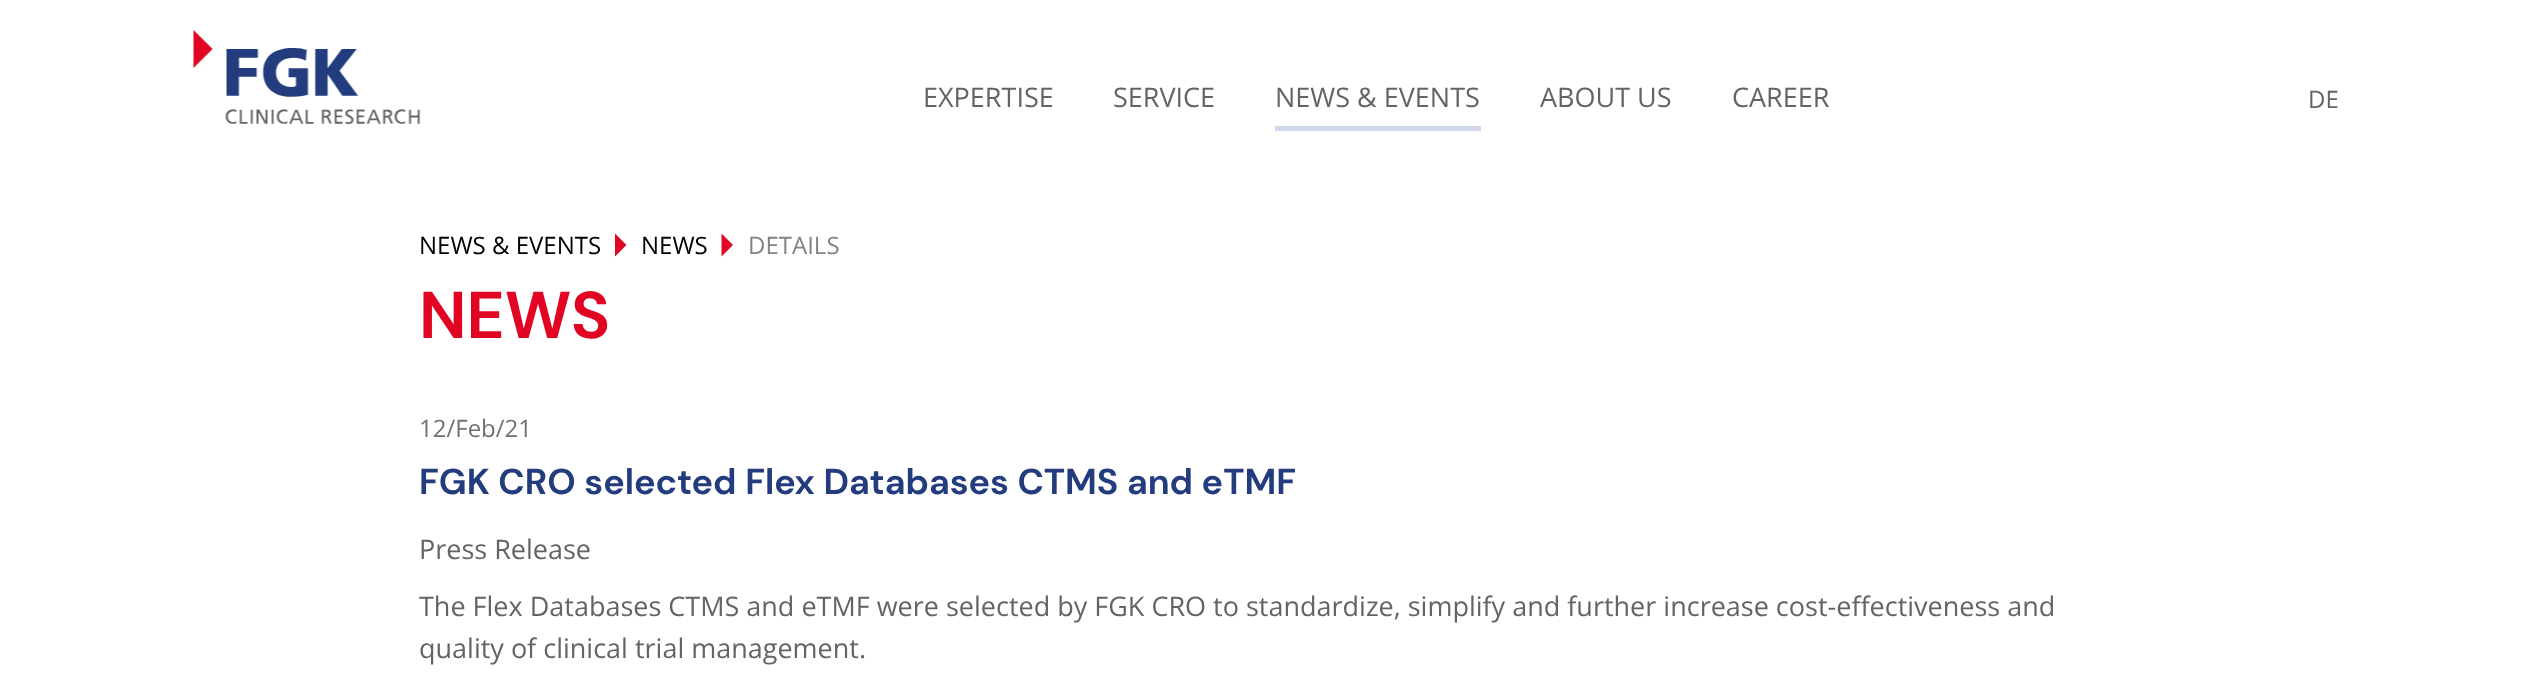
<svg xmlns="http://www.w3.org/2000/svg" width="2546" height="700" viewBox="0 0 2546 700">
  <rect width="100%" height="100%" fill="#fff"/>
  <image x="193" y="30" width="228" height="94" href="img/1.png"/>
  <path d="M1275 126h206v5H1275z" fill="#cfd7e8"/>
  <path d="M615 233.5L626.5 245L615 256.5Z" fill="#e10523"/>
  <path d="M721.5 233.5L733 245L721.5 256.5Z" fill="#e10523"/>
  <g font-family="Open Sans" font-size="27" fill="#646464">
    <text x="923" y="107">EXPERTISE</text>
    <text x="1113" y="107">SERVICE</text>
    <text x="1275" y="107">NEWS &amp; EVENTS</text>
    <text x="1540" y="107">ABOUT US</text>
    <text x="1732" y="107">CAREER</text>
  </g>
  <text x="2308" y="108" font-family="Open Sans" font-size="24" fill="#646464">DE</text>
  <g font-family="Open Sans" font-size="24" fill="#000">
    <text x="419" y="254">NEWS &amp; EVENTS</text>
    <text x="641" y="254">NEWS</text>
  </g>
  <text x="748" y="254" font-family="Open Sans" font-size="24" fill="#838383">DETAILS</text>
  <text x="419" y="338" font-family="DM Sans" font-size="66" font-weight="bold" fill="#e10523">NEWS</text>
  <text x="419" y="437" font-family="Open Sans" font-size="24" fill="#707173">12/Feb/21</text>
  <text x="419" y="494" font-family="DM Sans" font-size="36" font-weight="bold" fill="#233c7d">FGK CRO selected Flex Databases CTMS and eTMF</text>
  <g font-family="Open Sans" font-size="27" fill="#646464">
    <text x="419" y="559">Press Release</text>
    <text x="419" y="616">The Flex Databases CTMS and eTMF were selected by FGK CRO to standardize, simplify and further increase cost-effectiveness and</text>
    <text x="419" y="658">quality of clinical trial management.</text>
  </g>
</svg>
